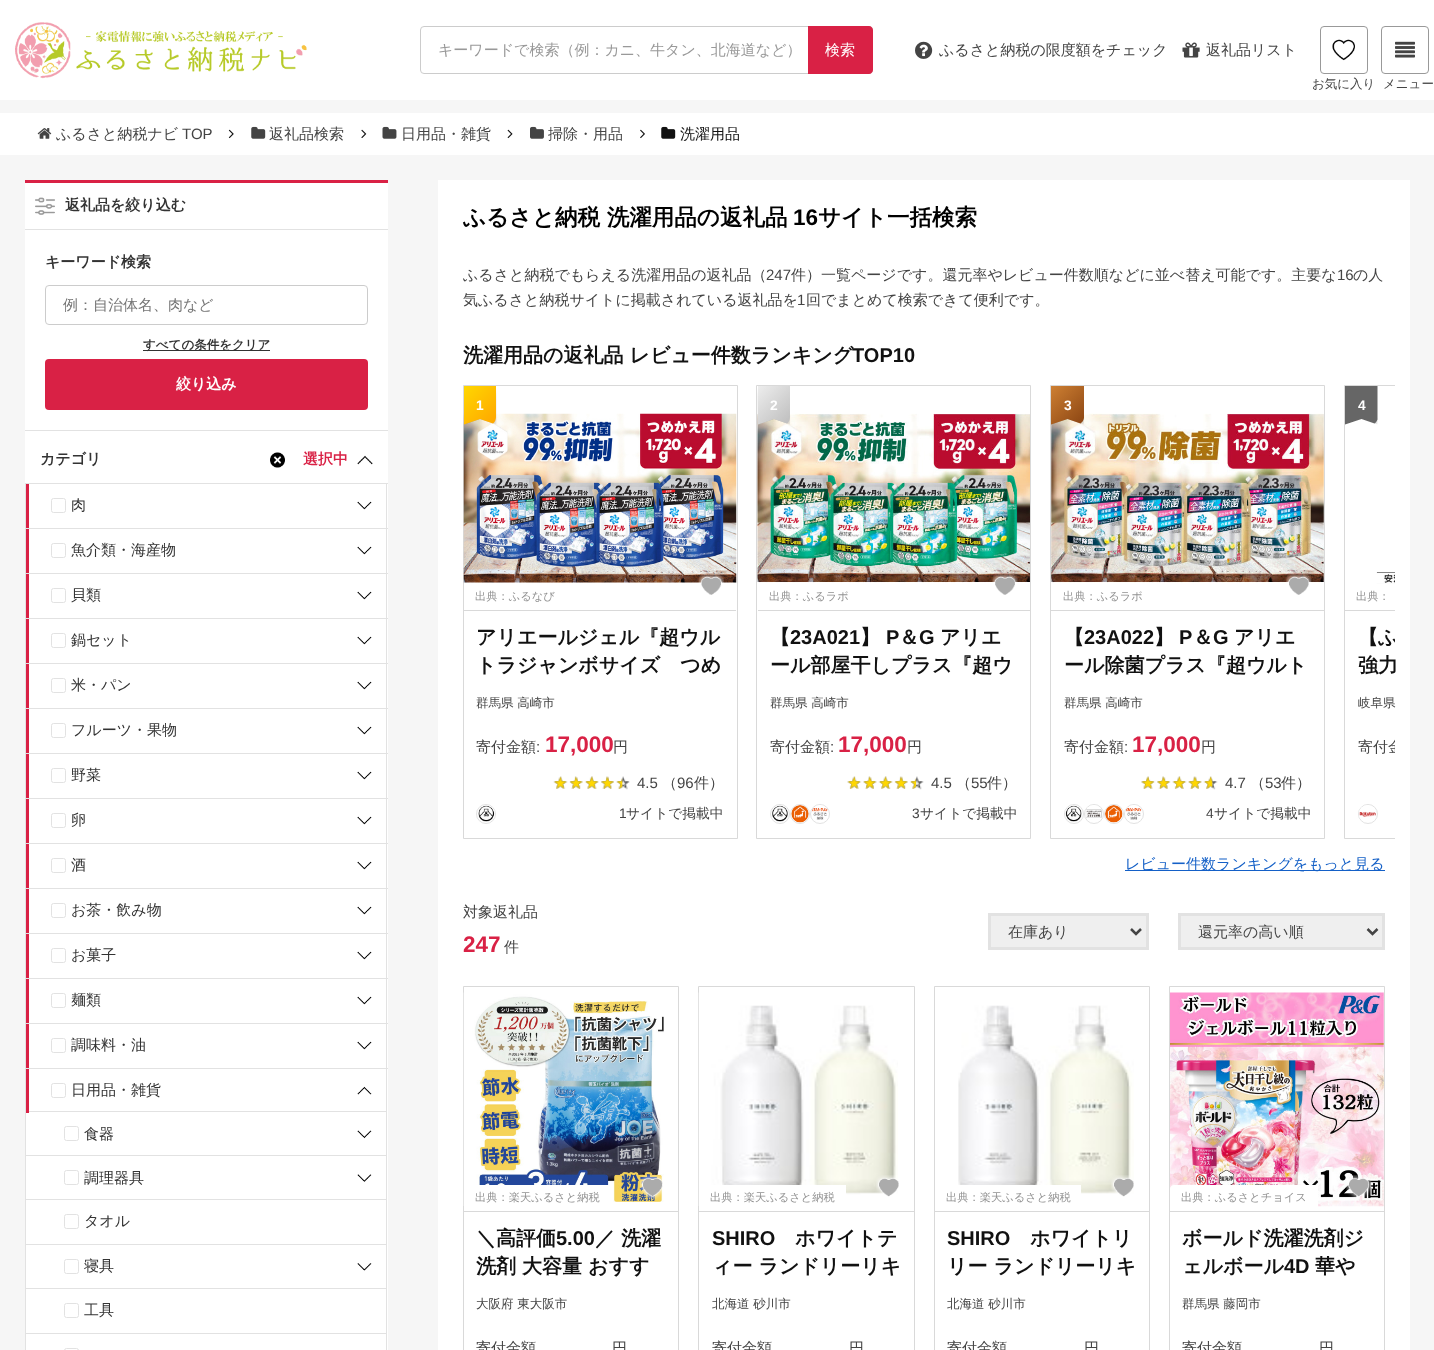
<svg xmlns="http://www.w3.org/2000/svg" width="1434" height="1350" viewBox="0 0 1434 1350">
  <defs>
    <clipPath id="clip1"><path d="M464 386H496.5V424.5L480 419L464 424.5Z"/></clipPath>
    <linearGradient id="g1" gradientUnits="userSpaceOnUse" x1="462" y1="388" x2="498" y2="423"><stop offset="0" stop-color="#ffd700"/><stop offset="1" stop-color="#ffa500"/></linearGradient>
    <clipPath id="clip2"><path d="M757.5 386H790V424.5L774 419L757.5 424.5Z"/></clipPath>
    <linearGradient id="g2" gradientUnits="userSpaceOnUse" x1="756" y1="388" x2="792" y2="423"><stop offset="0" stop-color="#ededed"/><stop offset="1" stop-color="#bdbdbd"/></linearGradient>
    <clipPath id="clip3"><path d="M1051 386H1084V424.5L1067.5 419L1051 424.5Z"/></clipPath>
    <linearGradient id="g3" gradientUnits="userSpaceOnUse" x1="1050" y1="388" x2="1085" y2="423"><stop offset="0" stop-color="#cd7f32"/><stop offset="1" stop-color="#8b4513"/></linearGradient>
    <clipPath id="clip4"><path d="M454 375h941v474H454z"/></clipPath>
    <clipPath id="clip5"><path d="M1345 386H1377.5V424.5L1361.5 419L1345 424.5Z"/></clipPath>
    <clipPath id="clip6"><path d="M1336 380H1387V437H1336ZM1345 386H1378V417C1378 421.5 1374.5 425 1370 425H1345Z" clip-rule="evenodd"/></clipPath>
    <clipPath id="clip7"><path d="M1358 624h37v56H1358z"/></clipPath>
  </defs>
  <rect width="100%" height="100%" fill="#f6f6f6"/>
  <path d="M0 0h1434v100H0z" fill="#fff"/>
  <image x="15" y="22" width="292" height="57" href="img/1.png"/>
  <rect x="420.5" y="26.5" width="452" height="47" rx="3.5" fill="none" stroke="#ccc"/>
  <path d="M808 26H869C871 26 873 28 873 30V70C873 72 871 74 869 74H808Z" fill="#d92145"/>
  <image x="915" y="41" width="18" height="18" href="img/2.png"/>
  <image x="1182" y="42" width="18" height="16" href="img/3.png"/>
  <rect x="1320.5" y="26.5" width="47" height="47" rx="3.5" fill="none" stroke="#999"/>
  <image x="1332" y="39" width="23" height="22" href="img/4.png"/>
  <rect x="1381.5" y="26.5" width="47" height="47" rx="3.5" fill="none" stroke="#999"/>
  <image x="1395" y="41" width="20" height="17" href="img/5.png"/>
  <path d="M0 113h1434v42H0z" fill="#fff"/>
  <image x="37" y="128" width="15" height="11" href="img/6.png"/>
  <image x="228" y="129" width="6" height="10" href="img/7.png"/>
  <image x="251" y="126" width="15" height="13" href="img/8.png"/>
  <image x="361" y="129" width="6" height="9" href="img/9.png"/>
  <image x="382" y="126" width="15" height="13" href="img/10.png"/>
  <image x="507" y="129" width="6" height="10" href="img/11.png"/>
  <image x="530" y="126" width="14" height="13" href="img/12.png"/>
  <image x="640" y="129" width="5" height="10" href="img/13.png"/>
  <image x="661" y="126" width="15" height="13" href="img/14.png"/>
  <path d="M25 183h363v1167H25z" fill="#fff"/>
  <path d="M25 180h363v3H25z" fill="#d92145"/>
  <path d="M25 229h363v1H25z" fill="#e2e2e2"/>
  <image x="35" y="197" width="20" height="18" href="img/15.png"/>
  <path d="M25 430h363v1H25z" fill="#e2e2e2"/>
  <rect x="45.5" y="285.5" width="322" height="39" rx="3.5" fill="none" stroke="#ccc"/>
  <path d="M143 350h127v1H143z" fill="#333"/>
  <rect x="45" y="359" width="323" height="51" rx="4" fill="#d92145"/>
  <image x="270" y="452" width="15" height="16" href="img/16.png"/>
  <image x="357" y="455" width="16" height="10" href="img/17.png"/>
  <path d="M25 483h363v1H25z" fill="#e2e2e2"/>
  <path d="M386 483h1v45H386z" fill="#e2e2e2"/>
  <path d="M25 483h1v45H25z" fill="#e2e2e2"/>
  <path d="M26 484h3v44H26z" fill="#d92145"/>
  <rect x="51.5" y="498.5" width="14" height="14" rx="2" fill="none" stroke="#e2e2e2"/>
  <image x="357" y="501" width="15" height="9" href="img/18.png"/>
  <path d="M25 528h363v1H25z" fill="#e2e2e2"/>
  <path d="M386 528h1v45H386z" fill="#e2e2e2"/>
  <path d="M25 528h1v45H25z" fill="#e2e2e2"/>
  <path d="M26 529h3v44H26z" fill="#d92145"/>
  <rect x="51.5" y="543.5" width="14" height="14" rx="2" fill="none" stroke="#e2e2e2"/>
  <image x="357" y="546" width="15" height="9" href="img/18.png"/>
  <path d="M25 573h363v1H25z" fill="#e2e2e2"/>
  <path d="M386 573h1v45H386z" fill="#e2e2e2"/>
  <path d="M25 573h1v45H25z" fill="#e2e2e2"/>
  <path d="M26 574h3v44H26z" fill="#d92145"/>
  <rect x="51.5" y="588.5" width="14" height="14" rx="2" fill="none" stroke="#e2e2e2"/>
  <image x="357" y="591" width="15" height="9" href="img/18.png"/>
  <path d="M25 618h363v1H25z" fill="#e2e2e2"/>
  <path d="M386 618h1v45H386z" fill="#e2e2e2"/>
  <path d="M25 618h1v45H25z" fill="#e2e2e2"/>
  <path d="M26 619h3v44H26z" fill="#d92145"/>
  <rect x="51.5" y="633.5" width="14" height="14" rx="2" fill="none" stroke="#e2e2e2"/>
  <image x="357" y="636" width="15" height="9" href="img/18.png"/>
  <path d="M25 663h363v1H25z" fill="#e2e2e2"/>
  <path d="M386 663h1v45H386z" fill="#e2e2e2"/>
  <path d="M25 663h1v45H25z" fill="#e2e2e2"/>
  <path d="M26 664h3v44H26z" fill="#d92145"/>
  <rect x="51.5" y="678.5" width="14" height="14" rx="2" fill="none" stroke="#e2e2e2"/>
  <image x="357" y="681" width="15" height="9" href="img/18.png"/>
  <path d="M25 708h363v1H25z" fill="#e2e2e2"/>
  <path d="M386 708h1v45H386z" fill="#e2e2e2"/>
  <path d="M25 708h1v45H25z" fill="#e2e2e2"/>
  <path d="M26 709h3v44H26z" fill="#d92145"/>
  <rect x="51.5" y="723.5" width="14" height="14" rx="2" fill="none" stroke="#e2e2e2"/>
  <image x="357" y="726" width="15" height="9" href="img/18.png"/>
  <path d="M25 753h363v1H25z" fill="#e2e2e2"/>
  <path d="M386 753h1v45H386z" fill="#e2e2e2"/>
  <path d="M25 753h1v45H25z" fill="#e2e2e2"/>
  <path d="M26 754h3v44H26z" fill="#d92145"/>
  <rect x="51.5" y="768.5" width="14" height="14" rx="2" fill="none" stroke="#e2e2e2"/>
  <image x="357" y="771" width="15" height="9" href="img/18.png"/>
  <path d="M25 798h363v1H25z" fill="#e2e2e2"/>
  <path d="M386 798h1v45H386z" fill="#e2e2e2"/>
  <path d="M25 798h1v45H25z" fill="#e2e2e2"/>
  <path d="M26 799h3v44H26z" fill="#d92145"/>
  <rect x="51.5" y="813.5" width="14" height="14" rx="2" fill="none" stroke="#e2e2e2"/>
  <image x="357" y="816" width="15" height="9" href="img/18.png"/>
  <path d="M25 843h363v1H25z" fill="#e2e2e2"/>
  <path d="M386 843h1v45H386z" fill="#e2e2e2"/>
  <path d="M25 843h1v45H25z" fill="#e2e2e2"/>
  <path d="M26 844h3v44H26z" fill="#d92145"/>
  <rect x="51.5" y="858.5" width="14" height="14" rx="2" fill="none" stroke="#e2e2e2"/>
  <image x="357" y="861" width="15" height="9" href="img/18.png"/>
  <path d="M25 888h363v1H25z" fill="#e2e2e2"/>
  <path d="M386 888h1v45H386z" fill="#e2e2e2"/>
  <path d="M25 888h1v45H25z" fill="#e2e2e2"/>
  <path d="M26 889h3v44H26z" fill="#d92145"/>
  <rect x="51.5" y="903.5" width="14" height="14" rx="2" fill="none" stroke="#e2e2e2"/>
  <image x="357" y="906" width="15" height="9" href="img/18.png"/>
  <path d="M25 933h363v1H25z" fill="#e2e2e2"/>
  <path d="M386 933h1v45H386z" fill="#e2e2e2"/>
  <path d="M25 933h1v45H25z" fill="#e2e2e2"/>
  <path d="M26 934h3v44H26z" fill="#d92145"/>
  <rect x="51.5" y="948.5" width="14" height="14" rx="2" fill="none" stroke="#e2e2e2"/>
  <image x="357" y="951" width="15" height="9" href="img/18.png"/>
  <path d="M25 978h363v1H25z" fill="#e2e2e2"/>
  <path d="M386 978h1v45H386z" fill="#e2e2e2"/>
  <path d="M25 978h1v45H25z" fill="#e2e2e2"/>
  <path d="M26 979h3v44H26z" fill="#d92145"/>
  <rect x="51.5" y="993.5" width="14" height="14" rx="2" fill="none" stroke="#e2e2e2"/>
  <image x="357" y="996" width="15" height="9" href="img/18.png"/>
  <path d="M25 1023h363v1H25z" fill="#e2e2e2"/>
  <path d="M386 1023h1v45H386z" fill="#e2e2e2"/>
  <path d="M25 1023h1v45H25z" fill="#e2e2e2"/>
  <path d="M26 1024h3v44H26z" fill="#d92145"/>
  <rect x="51.5" y="1038.5" width="14" height="14" rx="2" fill="none" stroke="#e2e2e2"/>
  <image x="357" y="1041" width="15" height="9" href="img/18.png"/>
  <path d="M25 1068h363v1H25z" fill="#e2e2e2"/>
  <path d="M386 1068h1v282H386z" fill="#e2e2e2"/>
  <path d="M25 1068h1v282H25z" fill="#e2e2e2"/>
  <path d="M26 1111h360v1H26z" fill="#e2e2e2"/>
  <path d="M26 1069h3v44H26z" fill="#d92145"/>
  <rect x="51.5" y="1083.5" width="14" height="14" rx="2" fill="none" stroke="#e2e2e2"/>
  <image x="357" y="1086" width="15" height="9" href="img/19.png"/>
  <path d="M26 1155h360v1H26z" fill="#e2e2e2"/>
  <rect x="64.5" y="1126.5" width="14" height="14" rx="2" fill="none" stroke="#e2e2e2"/>
  <image x="357" y="1130" width="15" height="9" href="img/20.png"/>
  <path d="M26 1199h360v1H26z" fill="#e2e2e2"/>
  <rect x="64.5" y="1170.5" width="14" height="14" rx="2" fill="none" stroke="#e2e2e2"/>
  <image x="357" y="1174" width="15" height="8" href="img/21.png"/>
  <path d="M26 1244h360v1H26z" fill="#e2e2e2"/>
  <rect x="64.5" y="1214.5" width="14" height="14" rx="2" fill="none" stroke="#e2e2e2"/>
  <path d="M26 1288h360v1H26z" fill="#e2e2e2"/>
  <rect x="64.5" y="1259.5" width="14" height="14" rx="2" fill="none" stroke="#e2e2e2"/>
  <image x="357" y="1263" width="15" height="8" href="img/22.png"/>
  <path d="M26 1333h360v1H26z" fill="#e2e2e2"/>
  <rect x="64.5" y="1303.5" width="14" height="14" rx="2" fill="none" stroke="#e2e2e2"/>
  <rect x="64.5" y="1348.5" width="14" height="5" rx="2" fill="none" stroke="#e2e2e2"/>
  <path d="M438 180h972v1170H438z" fill="#fff"/>
  <path d="M463.5 385.5h274v453H463.5z" fill="none" stroke="#d9d9d9"/>
  <image x="463" y="413" width="274" height="170" href="img/24.png"/>
  <g clip-path="url(#clip1)">
    <rect x="464" y="389" width="32" height="39" rx="8" fill="#00000033" filter="blur(2.5px)"/>
  </g>
  <path d="M464 424.5V386H496V417C496 419.5 495 422 493 423.5L480 419Z" fill="url(#g1)"/>
  <image x="698" y="574" width="26" height="21" href="img/23.png"/>
  <path d="M464 610h272v1H464z" fill="#d9d9d9"/>
  <image x="553" y="776" width="77" height="14" href="img/25.png"/>
  <image x="554" y="776" width="69" height="13" href="img/26.png"/>
  <circle cx="486" cy="814" r="9.5" fill="none" stroke="#e2e2e2"/>
  <image x="478" y="805" width="17" height="17" href="img/27.png"/>
  <path d="M756.5 385.5h274v453H756.5z" fill="none" stroke="#d9d9d9"/>
  <image x="757" y="413" width="273" height="170" href="img/29.png"/>
  <g clip-path="url(#clip2)">
    <rect x="758" y="389" width="32" height="39" rx="8" fill="#00000033" filter="blur(2.5px)"/>
  </g>
  <path d="M758 424.5V386H790V417C790 419.5 789 422 787 423.5L774 419Z" fill="url(#g2)"/>
  <image x="992" y="574" width="26" height="21" href="img/28.png"/>
  <path d="M758 610h272v1H758z" fill="#d9d9d9"/>
  <image x="847" y="776" width="77" height="14" href="img/30.png"/>
  <image x="847" y="776" width="70" height="13" href="img/31.png"/>
  <circle cx="780" cy="814" r="9.5" fill="none" stroke="#e2e2e2"/>
  <image x="772" y="805" width="16" height="17" href="img/32.png"/>
  <circle cx="800" cy="814" r="9.5" fill="none" stroke="#e2e2e2"/>
  <image x="791" y="805" width="18" height="18" href="img/33.png"/>
  <circle cx="820" cy="814" r="9.5" fill="none" stroke="#e2e2e2"/>
  <image x="812" y="805" width="16" height="15" href="img/34.png"/>
  <path d="M1050.5 385.5h274v453H1050.5z" fill="none" stroke="#d9d9d9"/>
  <image x="1051" y="413" width="273" height="170" href="img/36.png"/>
  <g clip-path="url(#clip3)">
    <rect x="1051" y="389" width="33" height="39" rx="8" fill="#00000033" filter="blur(2.5px)"/>
  </g>
  <path d="M1051 386H1084V418C1083.5 420.5 1082.5 422 1080.5 423.5L1067.5 419L1051 424.5Z" fill="url(#g3)"/>
  <image x="1286" y="574" width="26" height="21" href="img/35.png"/>
  <path d="M1051 610h273v1H1051z" fill="#d9d9d9"/>
  <image x="1141" y="776" width="77" height="14" href="img/37.png"/>
  <image x="1141" y="776" width="72" height="13" href="img/38.png"/>
  <circle cx="1074" cy="814" r="9.5" fill="none" stroke="#e2e2e2"/>
  <image x="1065" y="805" width="17" height="17" href="img/39.png"/>
  <circle cx="1094" cy="814" r="9.5" fill="none" stroke="#e2e2e2"/>
  <image x="1085" y="805" width="17" height="13" href="img/40.png"/>
  <circle cx="1114" cy="814" r="9.5" fill="none" stroke="#e2e2e2"/>
  <image x="1105" y="805" width="18" height="18" href="img/41.png"/>
  <circle cx="1134" cy="814" r="9.5" fill="none" stroke="#e2e2e2"/>
  <image x="1125" y="805" width="17" height="15" href="img/42.png"/>
  <g clip-path="url(#clip4)">
    <path d="M1344.5 385.5h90v453H1344.5z" fill="none" stroke="#d9d9d9"/>
  </g>
  <g clip-path="url(#clip5)">
    <g clip-path="url(#clip6)">
      <rect x="1345" y="389" width="33" height="39" rx="8" fill="#00000033" filter="blur(2.5px)"/>
    </g>
  </g>
  <path d="M1345 386V424.5L1361.5 419L1374.5 423.5C1376 422.5 1377 421 1377.5 419.5V386Z" fill="#00000099"/>
  <path d="M1345 610h50v1H1345z" fill="#d9d9d9"/>
  <image x="1376" y="572" width="19" height="12" href="img/43.png"/>
  <circle cx="1368" cy="814" r="9.5" fill="none" stroke="#e2e2e2"/>
  <image x="1359" y="805" width="17" height="17" href="img/44.png"/>
  <path d="M1125 870h260v1H1125z" fill="#1460c7"/>
  <path d="M989.5 914.5h158v34H989.5z" fill="#efefef" stroke="#e2e2e2" stroke-width="3"/>
  <path d="M1131 929L1136 934L1141 929" fill="none" stroke="#444" stroke-width="2.5"/>
  <path d="M1179.5 914.5h204v34H1179.5z" fill="#efefef" stroke="#e2e2e2" stroke-width="3"/>
  <path d="M1367.5 929L1372.5 934L1377.5 929" fill="none" stroke="#444" stroke-width="2.5"/>
  <path d="M463.5 986.5h215v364H463.5z" fill="none" stroke="#d9d9d9"/>
  <image x="463" y="992" width="201" height="214" href="img/46.png"/>
  <image x="640" y="1175" width="23" height="25" href="img/45.png"/>
  <path d="M464 1211h214v1H464z" fill="#d9d9d9"/>
  <path d="M468 1185H611V1211H464V1189C464 1187 466 1185 468 1185Z" fill="#fff"/>
  <path d="M698.5 986.5h216v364H698.5z" fill="none" stroke="#d9d9d9"/>
  <image x="698" y="992" width="200" height="214" href="img/48.png"/>
  <image x="876" y="1175" width="23" height="22" href="img/47.png"/>
  <path d="M699 1211h215v1H699z" fill="#d9d9d9"/>
  <path d="M703 1185H846V1211H699V1189C699 1187 701 1185 703 1185Z" fill="#fff"/>
  <path d="M934.5 986.5h215v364H934.5z" fill="none" stroke="#d9d9d9"/>
  <image x="958" y="1005" width="176" height="189" href="img/50.png"/>
  <image x="1111" y="1175" width="23" height="22" href="img/49.png"/>
  <path d="M935 1211h214v1H935z" fill="#d9d9d9"/>
  <path d="M939 1185H1081V1211H935V1189C935 1187 937 1185 939 1185Z" fill="#fff"/>
  <path d="M1169.5 986.5h215v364H1169.5z" fill="none" stroke="#d9d9d9"/>
  <image x="1170" y="992" width="214" height="215" href="img/52.png"/>
  <image x="1346" y="1175" width="26" height="24" href="img/51.png"/>
  <path d="M1170 1211h214v1H1170z" fill="#d9d9d9"/>
  <path d="M1174 1185H1318V1211H1170V1189C1170 1187 1172 1185 1174 1185Z" fill="#fff"/>
  <text x="438" y="55" font-family="WenQuanYi Zen Hei" font-size="15" font-weight="500" fill="#999">キーワードで検索（例：カニ、牛タン、北海道など）</text>
  <text x="825" y="55" font-family="WenQuanYi Zen Hei" font-size="15" font-weight="500" fill="#fff">検索</text>
  <g font-family="WenQuanYi Zen Hei" font-size="15" font-weight="500" fill="#444">
    <text x="939" y="55">ふるさと納税の限度額をチェック</text>
    <text x="1206" y="55">返礼品リスト</text>
  </g>
  <g font-family="WenQuanYi Zen Hei" font-size="12.5" font-weight="500" fill="#444">
    <text x="1312" y="88">お気に入り</text>
    <text x="1383" y="88">メニュー</text>
  </g>
  <text x="56" y="139" font-family="WenQuanYi Zen Hei" font-size="15" font-weight="500" fill="#444">ふるさと納税ナビ</text>
  <text x="182" y="139" font-family="Liberation Sans" font-size="15" fill="#444">TOP</text>
  <g font-family="WenQuanYi Zen Hei" font-size="15" font-weight="500" fill="#444">
    <text x="269" y="139">返礼品検索</text>
    <text x="401" y="139">日用品・雑貨</text>
    <text x="548" y="139">掃除・用品</text>
  </g>
  <text x="680" y="139" font-family="WenQuanYi Zen Hei" font-size="15" font-weight="500" fill="#111">洗濯用品</text>
  <g font-family="WenQuanYi Zen Hei" font-size="15" font-weight="bold" fill="#333">
    <text x="65" y="210">返礼品を絞り込む</text>
    <text x="45" y="267">キーワード検索</text>
  </g>
  <text x="63" y="310" font-family="WenQuanYi Zen Hei" font-size="15" font-weight="500" fill="#757575">例：自治体名、肉など</text>
  <text x="143" y="349" font-family="WenQuanYi Zen Hei" font-size="12.5" font-weight="bold" fill="#333">すべての条件をクリア</text>
  <text x="176" y="389" font-family="WenQuanYi Zen Hei" font-size="15" font-weight="bold" fill="#fff">絞り込み</text>
  <text x="40" y="464" font-family="WenQuanYi Zen Hei" font-size="15" font-weight="bold" fill="#333">カテゴリ</text>
  <text x="303" y="464" font-family="WenQuanYi Zen Hei" font-size="15" font-weight="bold" fill="#d92145">選択中</text>
  <g font-family="WenQuanYi Zen Hei" font-size="15" font-weight="500" fill="#333">
    <text x="71" y="510">肉</text>
    <text x="71" y="555">魚介類・海産物</text>
    <text x="71" y="600">貝類</text>
    <text x="71" y="645">鍋セット</text>
    <text x="71" y="690">米・パン</text>
    <text x="71" y="735">フルーツ・果物</text>
    <text x="71" y="780">野菜</text>
    <text x="71" y="825">卵</text>
    <text x="71" y="870">酒</text>
    <text x="71" y="915">お茶・飲み物</text>
    <text x="71" y="960">お菓子</text>
    <text x="71" y="1005">麺類</text>
    <text x="71" y="1050">調味料・油</text>
    <text x="71" y="1095">日用品・雑貨</text>
    <text x="84" y="1139">食器</text>
    <text x="84" y="1183">調理器具</text>
    <text x="84" y="1226">タオル</text>
    <text x="84" y="1271">寝具</text>
    <text x="84" y="1315">工具</text>
  </g>
  <text x="463" y="225" font-family="WenQuanYi Zen Hei" font-size="22.5" font-weight="bold" fill="#000">ふるさと納税 洗濯用品の返礼品</text>
  <text x="793" y="225" font-family="Liberation Sans" font-size="22.5" font-weight="bold" fill="#000">16</text>
  <text x="818" y="225" font-family="WenQuanYi Zen Hei" font-size="22.5" font-weight="bold" fill="#000">サイト一括検索</text>
  <text x="463" y="280" font-family="WenQuanYi Zen Hei" font-size="15" font-weight="500" fill="#444">ふるさと納税でもらえる洗濯用品の返礼品（</text>
  <text x="766" y="280" font-family="Liberation Sans" font-size="15" fill="#444">247</text>
  <text x="791" y="280" font-family="WenQuanYi Zen Hei" font-size="15" font-weight="500" fill="#444">件）一覧ページです。還元率やレビュー件数順などに並べ替え可能です。主要な</text>
  <text x="1337" y="280" font-family="Liberation Sans" font-size="15" fill="#444">16</text>
  <g font-family="WenQuanYi Zen Hei" font-size="15" font-weight="500" fill="#444">
    <text x="1353" y="280">の人</text>
    <text x="463" y="305">気ふるさと納税サイトに掲載されている返礼品を</text>
  </g>
  <text x="797" y="305" font-family="Liberation Sans" font-size="15" fill="#444">1</text>
  <text x="806" y="305" font-family="WenQuanYi Zen Hei" font-size="15" font-weight="500" fill="#444">回でまとめて検索できて便利です。</text>
  <text x="463" y="362" font-family="WenQuanYi Zen Hei" font-size="20" font-weight="bold" fill="#111">洗濯用品の返礼品 レビュー件数ランキング</text>
  <text x="852" y="362" font-family="Liberation Sans" font-size="20" font-weight="bold" fill="#111">TOP10</text>
  <text x="476" y="410" font-family="Liberation Sans" font-size="13.75" font-weight="bold" fill="#fff">1</text>
  <text x="475" y="600" font-family="WenQuanYi Zen Hei" font-size="11.25" font-weight="500" fill="#929292">出典：ふるなび</text>
  <g font-family="WenQuanYi Zen Hei" font-size="20" font-weight="bold" fill="#111">
    <text x="476" y="644">アリエールジェル『超ウル</text>
    <text x="476" y="672">トラジャンボサイズ　つめ</text>
  </g>
  <text x="476" y="707" font-family="WenQuanYi Zen Hei" font-size="12.5" font-weight="500" fill="#444">群馬県 高崎市</text>
  <text x="476" y="752" font-family="WenQuanYi Zen Hei" font-size="15" font-weight="500" fill="#444">寄付金額</text>
  <text x="536" y="752" font-family="Liberation Sans" font-size="15" fill="#444">:</text>
  <text x="545" y="752" font-family="Liberation Sans" font-size="22.5" font-weight="bold" fill="#d92145">17,000</text>
  <text x="613" y="752" font-family="WenQuanYi Zen Hei" font-size="15" font-weight="500" fill="#444">円</text>
  <text x="637" y="788" font-family="Liberation Sans" font-size="15" fill="#444">4.5</text>
  <text x="662" y="788" font-family="WenQuanYi Zen Hei" font-size="15" font-weight="500" fill="#444">（</text>
  <text x="677" y="788" font-family="Liberation Sans" font-size="15" fill="#444">96</text>
  <text x="694" y="788" font-family="WenQuanYi Zen Hei" font-size="15" font-weight="500" fill="#444">件）</text>
  <text x="619" y="818" font-family="Liberation Sans" font-size="13.75" fill="#444">1</text>
  <text x="626" y="818" font-family="WenQuanYi Zen Hei" font-size="13.75" font-weight="500" fill="#444">サイトで掲載中</text>
  <text x="770" y="410" font-family="Liberation Sans" font-size="13.75" font-weight="bold" fill="#fff">2</text>
  <text x="769" y="600" font-family="WenQuanYi Zen Hei" font-size="11.25" font-weight="500" fill="#929292">出典：ふるラボ</text>
  <text x="770" y="644" font-family="WenQuanYi Zen Hei" font-size="20" font-weight="bold" fill="#111">【</text>
  <text x="790" y="644" font-family="Liberation Sans" font-size="20" font-weight="bold" fill="#111">23A021</text>
  <text x="860" y="644" font-family="WenQuanYi Zen Hei" font-size="20" font-weight="bold" fill="#111">】</text>
  <text x="886" y="644" font-family="Liberation Sans" font-size="20" font-weight="bold" fill="#111">P</text>
  <text x="899" y="644" font-family="WenQuanYi Zen Hei" font-size="20" font-weight="bold" fill="#111">＆</text>
  <text x="919" y="644" font-family="Liberation Sans" font-size="20" font-weight="bold" fill="#111">G</text>
  <g font-family="WenQuanYi Zen Hei" font-size="20" font-weight="bold" fill="#111">
    <text x="940" y="644">アリエ</text>
    <text x="770" y="672">ール部屋干しプラス『超ウ</text>
  </g>
  <text x="770" y="707" font-family="WenQuanYi Zen Hei" font-size="12.5" font-weight="500" fill="#444">群馬県 高崎市</text>
  <text x="770" y="752" font-family="WenQuanYi Zen Hei" font-size="15" font-weight="500" fill="#444">寄付金額</text>
  <text x="830" y="752" font-family="Liberation Sans" font-size="15" fill="#444">:</text>
  <text x="838" y="752" font-family="Liberation Sans" font-size="22.5" font-weight="bold" fill="#d92145">17,000</text>
  <text x="907" y="752" font-family="WenQuanYi Zen Hei" font-size="15" font-weight="500" fill="#444">円</text>
  <text x="931" y="788" font-family="Liberation Sans" font-size="15" fill="#444">4.5</text>
  <text x="956" y="788" font-family="WenQuanYi Zen Hei" font-size="15" font-weight="500" fill="#444">（</text>
  <text x="971" y="788" font-family="Liberation Sans" font-size="15" fill="#444">55</text>
  <text x="987" y="788" font-family="WenQuanYi Zen Hei" font-size="15" font-weight="500" fill="#444">件）</text>
  <text x="912" y="818" font-family="Liberation Sans" font-size="13.75" fill="#444">3</text>
  <text x="920" y="818" font-family="WenQuanYi Zen Hei" font-size="13.75" font-weight="500" fill="#444">サイトで掲載中</text>
  <text x="1064" y="410" font-family="Liberation Sans" font-size="13.75" font-weight="bold" fill="#fff">3</text>
  <text x="1063" y="600" font-family="WenQuanYi Zen Hei" font-size="11.25" font-weight="500" fill="#929292">出典：ふるラボ</text>
  <text x="1064" y="644" font-family="WenQuanYi Zen Hei" font-size="20" font-weight="bold" fill="#111">【</text>
  <text x="1084" y="644" font-family="Liberation Sans" font-size="20" font-weight="bold" fill="#111">23A022</text>
  <text x="1154" y="644" font-family="WenQuanYi Zen Hei" font-size="20" font-weight="bold" fill="#111">】</text>
  <text x="1179" y="644" font-family="Liberation Sans" font-size="20" font-weight="bold" fill="#111">P</text>
  <text x="1193" y="644" font-family="WenQuanYi Zen Hei" font-size="20" font-weight="bold" fill="#111">＆</text>
  <text x="1213" y="644" font-family="Liberation Sans" font-size="20" font-weight="bold" fill="#111">G</text>
  <g font-family="WenQuanYi Zen Hei" font-size="20" font-weight="bold" fill="#111">
    <text x="1234" y="644">アリエ</text>
    <text x="1064" y="672">ール除菌プラス『超ウルト</text>
  </g>
  <text x="1064" y="707" font-family="WenQuanYi Zen Hei" font-size="12.5" font-weight="500" fill="#444">群馬県 高崎市</text>
  <text x="1064" y="752" font-family="WenQuanYi Zen Hei" font-size="15" font-weight="500" fill="#444">寄付金額</text>
  <text x="1124" y="752" font-family="Liberation Sans" font-size="15" fill="#444">:</text>
  <text x="1132" y="752" font-family="Liberation Sans" font-size="22.5" font-weight="bold" fill="#d92145">17,000</text>
  <text x="1201" y="752" font-family="WenQuanYi Zen Hei" font-size="15" font-weight="500" fill="#444">円</text>
  <text x="1225" y="788" font-family="Liberation Sans" font-size="15" fill="#444">4.7</text>
  <text x="1250" y="788" font-family="WenQuanYi Zen Hei" font-size="15" font-weight="500" fill="#444">（</text>
  <text x="1265" y="788" font-family="Liberation Sans" font-size="15" fill="#444">53</text>
  <text x="1281" y="788" font-family="WenQuanYi Zen Hei" font-size="15" font-weight="500" fill="#444">件）</text>
  <text x="1206" y="818" font-family="Liberation Sans" font-size="13.75" fill="#444">4</text>
  <text x="1214" y="818" font-family="WenQuanYi Zen Hei" font-size="13.75" font-weight="500" fill="#444">サイトで掲載中</text>
  <text x="1358" y="410" font-family="Liberation Sans" font-size="13.75" font-weight="bold" fill="#fff">4</text>
  <text x="1356" y="600" font-family="WenQuanYi Zen Hei" font-size="11.25" font-weight="500" fill="#929292">出典：</text>
  <g clip-path="url(#clip7)">
    <text x="1358" y="644" font-family="WenQuanYi Zen Hei" font-size="20" font-weight="bold" fill="#111">【ふ</text>
  </g>
  <text x="1358" y="672" font-family="WenQuanYi Zen Hei" font-size="20" font-weight="bold" fill="#111">強力</text>
  <text x="1358" y="707" font-family="WenQuanYi Zen Hei" font-size="12.5" font-weight="500" fill="#444">岐阜県</text>
  <g clip-path="url(#clip4)">
    <text x="1358" y="752" font-family="WenQuanYi Zen Hei" font-size="15" font-weight="500" fill="#444">寄付金</text>
  </g>
  <text x="1125" y="869" font-family="WenQuanYi Zen Hei" font-size="15" font-weight="500" fill="#1460c7">レビュー件数ランキングをもっと見る</text>
  <text x="463" y="917" font-family="WenQuanYi Zen Hei" font-size="15" font-weight="500" fill="#444">対象返礼品</text>
  <text x="463" y="952" font-family="Liberation Sans" font-size="22.5" font-weight="bold" fill="#d92145">247</text>
  <g font-family="WenQuanYi Zen Hei" font-size="15" font-weight="500" fill="#444">
    <text x="504" y="952">件</text>
    <text x="1008" y="937">在庫あり</text>
    <text x="1198" y="937">還元率の高い順</text>
  </g>
  <text x="475" y="1201" font-family="WenQuanYi Zen Hei" font-size="11.25" font-weight="500" fill="#929292">出典：楽天ふるさと納税</text>
  <text x="476" y="1245" font-family="WenQuanYi Zen Hei" font-size="20" font-weight="bold" fill="#111">＼高評価</text>
  <text x="556" y="1245" font-family="Liberation Sans" font-size="20" font-weight="bold" fill="#111">5.00</text>
  <g font-family="WenQuanYi Zen Hei" font-size="20" font-weight="bold" fill="#111">
    <text x="595" y="1245">／ 洗濯</text>
    <text x="476" y="1273">洗剤 大容量 おすす</text>
  </g>
  <text x="476" y="1308" font-family="WenQuanYi Zen Hei" font-size="12.5" font-weight="500" fill="#444">大阪府 東大阪市</text>
  <g font-family="WenQuanYi Zen Hei" font-size="15" font-weight="500" fill="#444">
    <text x="476" y="1353">寄付金額</text>
    <text x="612" y="1353">円</text>
  </g>
  <text x="710" y="1201" font-family="WenQuanYi Zen Hei" font-size="11.25" font-weight="500" fill="#929292">出典：楽天ふるさと納税</text>
  <text x="712" y="1245" font-family="Liberation Sans" font-size="20" font-weight="bold" fill="#111">SHIRO</text>
  <g font-family="WenQuanYi Zen Hei" font-size="20" font-weight="bold" fill="#111">
    <text x="795" y="1245">ホワイトテ</text>
    <text x="712" y="1273">ィー ランドリーリキ</text>
  </g>
  <text x="712" y="1308" font-family="WenQuanYi Zen Hei" font-size="12.5" font-weight="500" fill="#444">北海道 砂川市</text>
  <g font-family="WenQuanYi Zen Hei" font-size="15" font-weight="500" fill="#444">
    <text x="712" y="1353">寄付金額</text>
    <text x="849" y="1353">円</text>
  </g>
  <text x="946" y="1201" font-family="WenQuanYi Zen Hei" font-size="11.25" font-weight="500" fill="#929292">出典：楽天ふるさと納税</text>
  <text x="947" y="1245" font-family="Liberation Sans" font-size="20" font-weight="bold" fill="#111">SHIRO</text>
  <g font-family="WenQuanYi Zen Hei" font-size="20" font-weight="bold" fill="#111">
    <text x="1030" y="1245">ホワイトリ</text>
    <text x="947" y="1273">リー ランドリーリキ</text>
  </g>
  <text x="947" y="1308" font-family="WenQuanYi Zen Hei" font-size="12.5" font-weight="500" fill="#444">北海道 砂川市</text>
  <g font-family="WenQuanYi Zen Hei" font-size="15" font-weight="500" fill="#444">
    <text x="947" y="1353">寄付金額</text>
    <text x="1084" y="1353">円</text>
  </g>
  <text x="1181" y="1201" font-family="WenQuanYi Zen Hei" font-size="11.25" font-weight="500" fill="#929292">出典：ふるさとチョイス</text>
  <g font-family="WenQuanYi Zen Hei" font-size="20" font-weight="bold" fill="#111">
    <text x="1182" y="1245">ボールド洗濯洗剤ジ</text>
    <text x="1182" y="1273">ェルボール</text>
  </g>
  <text x="1284" y="1273" font-family="Liberation Sans" font-size="20" font-weight="bold" fill="#111">4D</text>
  <text x="1315" y="1273" font-family="WenQuanYi Zen Hei" font-size="20" font-weight="bold" fill="#111">華や</text>
  <text x="1182" y="1308" font-family="WenQuanYi Zen Hei" font-size="12.5" font-weight="500" fill="#444">群馬県 藤岡市</text>
  <g font-family="WenQuanYi Zen Hei" font-size="15" font-weight="500" fill="#444">
    <text x="1182" y="1353">寄付金額</text>
    <text x="1319" y="1353">円</text>
  </g>
</svg>
